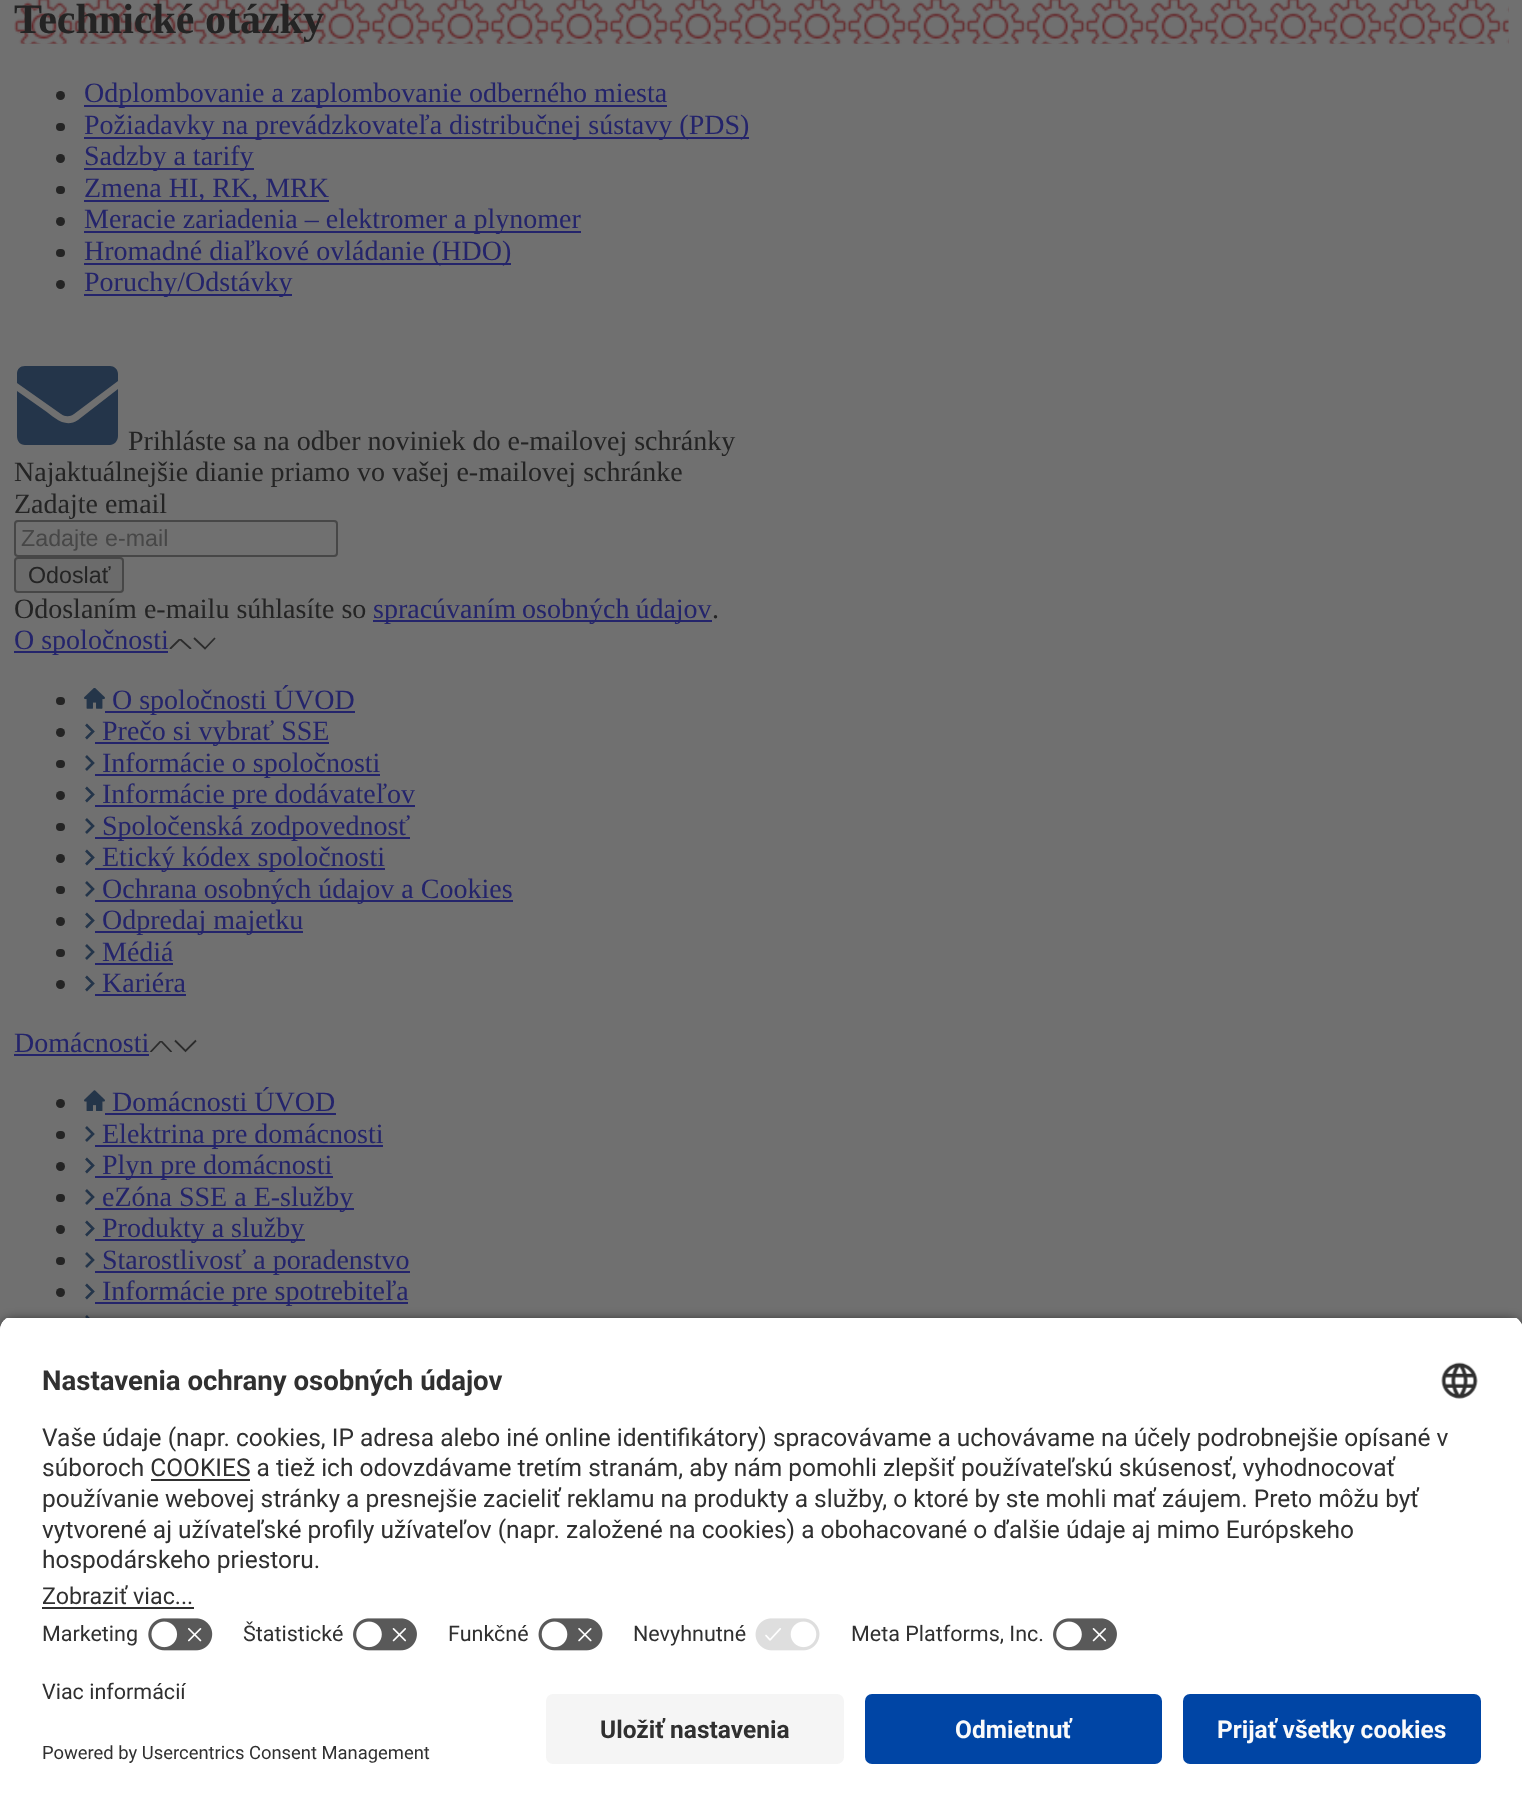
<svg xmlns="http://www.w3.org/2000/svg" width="1522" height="1806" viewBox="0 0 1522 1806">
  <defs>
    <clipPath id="clip1"><path d="M168 639h25v10H168z"/></clipPath>
    <clipPath id="clip2"><path d="M149 1041h24v11H149z"/></clipPath>
    <clipPath id="clip3"><path d="M14 1316H1509C1516.5 1316 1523 1322.5 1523 1330V1680H0V1330C0 1322.5 6.5 1316 14 1316Z"/></clipPath>
  </defs>
  <rect width="100%" height="100%" fill="#707070"/>
  <image x="14" y="0" width="1495" height="44" href="img/1.png"/>
  <circle cx="60.5" cy="95.5" r="4.5" fill="#242424"/>
  <path d="M84 105h583v2H84z" fill="#24246b"/>
  <rect x="56" y="123" width="9" height="8" rx="4" fill="#242424"/>
  <path d="M84 137h665v2H84z" fill="#24246b"/>
  <circle cx="60.5" cy="158.5" r="4.5" fill="#242424"/>
  <path d="M84 168h170v2H84z" fill="#24246b"/>
  <rect x="56" y="186" width="9" height="8" rx="4" fill="#242424"/>
  <path d="M84 200h245v2H84z" fill="#24246b"/>
  <circle cx="60.5" cy="221.5" r="4.5" fill="#242424"/>
  <path d="M84 231h497v2H84z" fill="#24246b"/>
  <rect x="56" y="249" width="9" height="8" rx="4" fill="#242424"/>
  <path d="M84 263h427v2H84z" fill="#24246b"/>
  <circle cx="60.5" cy="284.5" r="4.5" fill="#242424"/>
  <path d="M84 294h208v2H84z" fill="#24246b"/>
  <path d="M61 414C65 417 70 417 74 414L118 381V374C118 369 114 366 110 366H25C20 366 17 369 17 374V383Z" fill="#24354a"/>
  <path d="M78 420C65 429 54 417 44 410L17 391V436C17 441 20 445 25 445H110C114 445 118 441 118 436V389Z" fill="#24354a"/>
  <rect x="15" y="521" width="322" height="35" rx="3" fill="none" stroke="#474747" stroke-width="2"/>
  <rect x="15" y="558" width="108" height="34" rx="3" fill="#6b6b6b" stroke="#474747" stroke-width="2"/>
  <path d="M373 620h339v2H373z" fill="#24246b"/>
  <path d="M14 651h154v2H14z" fill="#24246b"/>
  <g clip-path="url(#clip1)">
    <path d="M170 649L180 639L191 649" fill="none" stroke="#2c2c2c" stroke-width="1.8"/>
  </g>
  <path d="M194 638L205 648.5L215 638" fill="none" stroke="#2c2c2c" stroke-width="1.8"/>
  <rect x="56" y="697" width="9" height="8" rx="4" fill="#242424"/>
  <image x="84" y="688" width="21" height="21" href="img/2.png"/>
  <path d="M105 711h250v2H105z" fill="#24246b"/>
  <circle cx="60.5" cy="732.5" r="4.5" fill="#242424"/>
  <path d="M86 724.5L93 731.5L86 738.5" fill="none" stroke="#24354a" stroke-width="2.6"/>
  <path d="M95 742h234v2H95z" fill="#24246b"/>
  <rect x="56" y="760" width="9" height="8" rx="4" fill="#242424"/>
  <path d="M86 756L93 763L86 770" fill="none" stroke="#24354a" stroke-width="2.6"/>
  <path d="M95 774h285v2H95z" fill="#24246b"/>
  <circle cx="60.5" cy="795.5" r="4.5" fill="#242424"/>
  <path d="M86 787.5L93 794.5L86 801.5" fill="none" stroke="#24354a" stroke-width="2.6"/>
  <path d="M95 805h320v2H95z" fill="#24246b"/>
  <rect x="56" y="823" width="9" height="8" rx="4" fill="#242424"/>
  <path d="M86 819L93 826L86 833" fill="none" stroke="#24354a" stroke-width="2.6"/>
  <path d="M95 837h315v2H95z" fill="#24246b"/>
  <circle cx="60.5" cy="858.5" r="4.5" fill="#242424"/>
  <path d="M86 850.5L93 857.5L86 864.5" fill="none" stroke="#24354a" stroke-width="2.6"/>
  <path d="M95 868h290v2H95z" fill="#24246b"/>
  <rect x="56" y="886" width="9" height="8" rx="4" fill="#242424"/>
  <path d="M86 882L93 889L86 896" fill="none" stroke="#24354a" stroke-width="2.6"/>
  <path d="M95 900h418v2H95z" fill="#24246b"/>
  <circle cx="60.5" cy="921.5" r="4.5" fill="#242424"/>
  <path d="M86 913.5L93 920.5L86 927.5" fill="none" stroke="#24354a" stroke-width="2.6"/>
  <path d="M95 931h208v2H95z" fill="#24246b"/>
  <rect x="56" y="949" width="9" height="8" rx="4" fill="#242424"/>
  <path d="M86 945L93 952L86 959" fill="none" stroke="#24354a" stroke-width="2.6"/>
  <path d="M95 963h78v2H95z" fill="#24246b"/>
  <circle cx="60.5" cy="984.5" r="4.5" fill="#242424"/>
  <path d="M86 976.5L93 983.5L86 990.5" fill="none" stroke="#24354a" stroke-width="2.6"/>
  <path d="M95 994h91v2H95z" fill="#24246b"/>
  <path d="M14 1054h135v2H14z" fill="#24246b"/>
  <g clip-path="url(#clip2)">
    <path d="M150.5 1052L161 1041L171.5 1052" fill="none" stroke="#2c2c2c" stroke-width="1.8"/>
  </g>
  <path d="M175 1040.5L185.5 1051L196 1040.5" fill="none" stroke="#2c2c2c" stroke-width="1.8"/>
  <circle cx="60.5" cy="1103.5" r="4.5" fill="#242424"/>
  <image x="84" y="1090" width="21" height="21" href="img/3.png"/>
  <path d="M105 1113h231v2H105z" fill="#24246b"/>
  <rect x="56" y="1131" width="9" height="8" rx="4" fill="#242424"/>
  <path d="M86 1127L93 1134L86 1141" fill="none" stroke="#24354a" stroke-width="2.6"/>
  <path d="M95 1145h288v2H95z" fill="#24246b"/>
  <circle cx="60.5" cy="1166.5" r="4.5" fill="#242424"/>
  <path d="M86 1158.5L93 1165.5L86 1172.5" fill="none" stroke="#24354a" stroke-width="2.6"/>
  <path d="M95 1176h238v2H95z" fill="#24246b"/>
  <rect x="56" y="1194" width="9" height="8" rx="4" fill="#242424"/>
  <path d="M86 1190L93 1197L86 1204" fill="none" stroke="#24354a" stroke-width="2.6"/>
  <path d="M95 1208h259v2H95z" fill="#24246b"/>
  <circle cx="60.5" cy="1229.5" r="4.5" fill="#242424"/>
  <path d="M86 1221.5L93 1228.5L86 1235.5" fill="none" stroke="#24354a" stroke-width="2.6"/>
  <path d="M95 1239h210v2H95z" fill="#24246b"/>
  <rect x="56" y="1257" width="9" height="8" rx="4" fill="#242424"/>
  <path d="M86 1253L93 1260L86 1267" fill="none" stroke="#24354a" stroke-width="2.6"/>
  <path d="M95 1271h315v2H95z" fill="#24246b"/>
  <circle cx="60.5" cy="1292.5" r="4.5" fill="#242424"/>
  <path d="M86 1284.5L93 1291.5L86 1298.5" fill="none" stroke="#24354a" stroke-width="2.6"/>
  <path d="M95 1302h313v2H95z" fill="#24246b"/>
  <path d="M86 1316L93 1323L86 1330" fill="none" stroke="#24354a" stroke-width="2.6"/>
  <rect y="1321" width="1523" height="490" rx="14" fill="#000000cc" filter="blur(6px)"/>
  <g clip-path="url(#clip3)">
    <path d="M0 1318h1522v362H0z" fill="#fff"/>
    <path d="M0 1318h1522v292H0z" fill="#fff"/>
  </g>
  <image x="1441" y="1362" width="37" height="37" href="img/4.png"/>
  <path d="M151 1479h99v2H151z" fill="#303030"/>
  <path d="M42 1607h152v2H42z" fill="#303030"/>
  <image x="148" y="1618" width="65" height="33" href="img/5.png"/>
  <image x="353" y="1618" width="64" height="33" href="img/6.png"/>
  <image x="538" y="1618" width="65" height="33" href="img/7.png"/>
  <image x="755" y="1618" width="65" height="33" href="img/8.png"/>
  <image x="1053" y="1618" width="64" height="33" href="img/6.png"/>
  <path d="M0 1680h1522v126H0z" fill="#fff"/>
  <rect x="546" y="1694" width="298" height="70" rx="7" fill="#f5f5f5"/>
  <rect x="865" y="1694" width="297" height="70" rx="7" fill="#0045a5"/>
  <rect x="1183" y="1694" width="298" height="70" rx="7" fill="#0045a5"/>
  <text x="14" y="33" font-family="Liberation Serif" font-size="42" font-weight="bold" fill="#242424">Technické otázky</text>
  <g font-family="Liberation Serif" font-size="28" fill="#24246b">
    <text x="84" y="102">Odplombovanie a zaplombovanie odberného miesta</text>
    <text x="84" y="134">Požiadavky na prevádzkovateľa distribučnej sústavy (PDS)</text>
    <text x="84" y="165">Sadzby a tarify</text>
    <text x="84" y="197">Zmena HI, RK, MRK</text>
    <text x="84" y="228">Meracie zariadenia – elektromer a plynomer</text>
    <text x="84" y="260">Hromadné diaľkové ovládanie (HDO)</text>
    <text x="84" y="291">Poruchy/Odstávky</text>
  </g>
  <g font-family="Liberation Serif" font-size="28" fill="#242424">
    <text x="128" y="450">Prihláste sa na odber noviniek do e-mailovej schránky</text>
    <text x="14" y="481">Najaktuálnejšie dianie priamo vo vašej e-mailovej schránke</text>
    <text x="14" y="513">Zadajte email</text>
  </g>
  <text x="21" y="546" font-family="Liberation Sans" font-size="23.25" fill="#474747">Zadajte e-mail</text>
  <text x="28" y="583" font-family="Liberation Sans" font-size="23.25" fill="#242424">Odoslať</text>
  <text x="14" y="618" font-family="Liberation Serif" font-size="28" fill="#242424">Odoslaním e-mailu súhlasíte so</text>
  <text x="373" y="618" word-spacing="-1" font-family="Liberation Serif" font-size="28" fill="#24246b">spracúvaním osobných údajov</text>
  <text x="712" y="618" font-family="Liberation Serif" font-size="28" fill="#242424">.</text>
  <g font-family="Liberation Serif" font-size="28" fill="#24246b">
    <text x="14" y="649">O spoločnosti</text>
    <text x="112" y="709">O spoločnosti ÚVOD</text>
    <text x="102" y="740">Prečo si vybrať SSE</text>
    <text x="102" y="772">Informácie o spoločnosti</text>
    <text x="102" y="803">Informácie pre dodávateľov</text>
    <text x="102" y="835">Spoločenská zodpovednosť</text>
    <text x="102" y="866">Etický kódex spoločnosti</text>
    <text x="102" y="898">Ochrana osobných údajov a Cookies</text>
    <text x="102" y="929">Odpredaj majetku</text>
    <text x="102" y="961">Médiá</text>
    <text x="102" y="992">Kariéra</text>
    <text x="14" y="1052">Domácnosti</text>
    <text x="112" y="1111">Domácnosti ÚVOD</text>
    <text x="102" y="1143">Elektrina pre domácnosti</text>
    <text x="102" y="1174">Plyn pre domácnosti</text>
    <text x="102" y="1206">eZóna SSE a E-služby</text>
    <text x="102" y="1237">Produkty a služby</text>
    <text x="102" y="1269">Starostlivosť a poradenstvo</text>
    <text x="102" y="1300">Informácie pre spotrebiteľa</text>
  </g>
  <text x="42" y="1390" font-family="Roboto" font-size="27.6" font-weight="bold" fill="#303030">Nastavenia ochrany osobných údajov</text>
  <g font-family="Roboto" font-size="24.5" fill="#303030">
    <text x="42" y="1446">Vaše údaje (napr. cookies, IP adresa alebo iné online identifikátory) spracovávame a uchovávame na účely podrobnejšie opísané v</text>
    <text x="42" y="1476">súboroch COOKIES a tiež ich odovzdávame tretím stranám, aby nám pomohli zlepšiť používateľskú skúsenosť, vyhodnocovať</text>
    <text x="42" y="1507">používanie webovej stránky a presnejšie zacieliť reklamu na produkty a služby, o ktoré by ste mohli mať záujem. Preto môžu byť</text>
    <text x="42" y="1538">vytvorené aj užívateľské profily užívateľov (napr. založené na cookies) a obohacované o ďalšie údaje aj mimo Európskeho</text>
    <text x="42" y="1568">hospodárskeho priestoru.</text>
  </g>
  <text x="42" y="1604" font-family="Roboto" font-size="23.25" fill="#303030">Zobraziť viac...</text>
  <g font-family="Roboto" font-size="21.5" fill="#303030">
    <text x="42" y="1641">Marketing</text>
    <text x="243" y="1641">Štatistické</text>
    <text x="448" y="1641">Funkčné</text>
    <text x="633" y="1641">Nevyhnutné</text>
    <text x="851" y="1641">Meta Platforms, Inc.</text>
    <text x="42" y="1699">Viac informácií</text>
  </g>
  <text x="42" y="1759" font-family="Roboto" font-size="18.4" fill="#303030">Powered by Usercentrics Consent Management</text>
  <text x="600" y="1738" font-family="Roboto" font-size="24.5" font-weight="bold" fill="#303030">Uložiť nastavenia</text>
  <g font-family="Roboto" font-size="24.5" font-weight="bold" fill="#fafafa">
    <text x="955" y="1738">Odmietnuť</text>
    <text x="1217" y="1738">Prijať všetky cookies</text>
  </g>
</svg>
